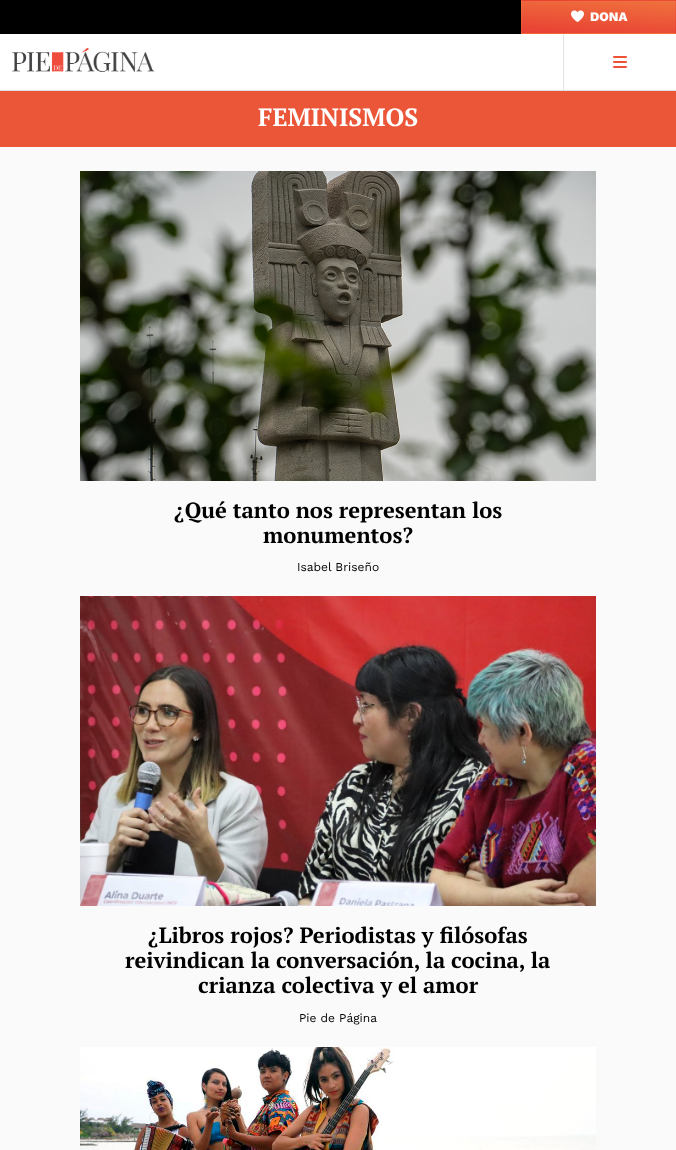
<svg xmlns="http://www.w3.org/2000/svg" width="676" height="1150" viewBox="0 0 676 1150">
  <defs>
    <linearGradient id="g1" gradientUnits="userSpaceOnUse" x1="447" y1="-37" x2="444" y2="7.2"><stop offset="0" stop-color="#f0733e"/><stop offset="1" stop-color="#e83e33"/></linearGradient>
    <linearGradient id="g2" gradientUnits="userSpaceOnUse" x1="600" y1="-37" x2="597" y2="7.2"><stop offset="0" stop-color="#f0733e"/><stop offset="1" stop-color="#e83e33"/></linearGradient>
    <linearGradient id="g3" gradientUnits="userSpaceOnUse" x1="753" y1="-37" x2="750" y2="7.2"><stop offset="0" stop-color="#f0733e"/><stop offset="1" stop-color="#e83e33"/></linearGradient>
    <linearGradient id="g4" gradientUnits="userSpaceOnUse" x1="447" y1="-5.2" x2="444" y2="39"><stop offset="0" stop-color="#f0733e"/><stop offset="1" stop-color="#e83e33"/></linearGradient>
    <linearGradient id="g5" gradientUnits="userSpaceOnUse" x1="600" y1="-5.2" x2="597" y2="39"><stop offset="0" stop-color="#f0733e"/><stop offset="1" stop-color="#e83e33"/></linearGradient>
    <linearGradient id="g6" gradientUnits="userSpaceOnUse" x1="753" y1="-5.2" x2="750" y2="39"><stop offset="0" stop-color="#f0733e"/><stop offset="1" stop-color="#e83e33"/></linearGradient>
    <linearGradient id="g7" gradientUnits="userSpaceOnUse" x1="447" y1="27" x2="444" y2="71"><stop offset="0" stop-color="#f0733e"/><stop offset="1" stop-color="#e83e33"/></linearGradient>
    <linearGradient id="g8" gradientUnits="userSpaceOnUse" x1="600" y1="27" x2="597" y2="71"><stop offset="0" stop-color="#f0733e"/><stop offset="1" stop-color="#e83e33"/></linearGradient>
    <linearGradient id="g9" gradientUnits="userSpaceOnUse" x1="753" y1="27" x2="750" y2="71"><stop offset="0" stop-color="#f0733e"/><stop offset="1" stop-color="#e83e33"/></linearGradient>
  </defs>
  <rect width="100%" height="100%" fill="#fafafa"/>
  <path d="M0 0h521v34H0z" fill="#000"/>
  <path d="M521 0h1v1H521z" fill="url(#g1)"/>
  <path d="M522 0h153v1H522z" fill="url(#g2)"/>
  <path d="M675 0h1v1H675z" fill="url(#g3)"/>
  <path d="M521 1h1v32H521z" fill="url(#g4)"/>
  <path d="M522 1h153v32H522z" fill="url(#g5)"/>
  <path d="M675 1h1v32H675z" fill="url(#g6)"/>
  <path d="M521 33h1v1H521z" fill="url(#g7)"/>
  <path d="M522 33h153v1H522z" fill="url(#g8)"/>
  <path d="M675 33h1v1H675z" fill="url(#g9)"/>
  <image x="571" y="10" width="13" height="12" href="img/1.png"/>
  <path d="M0 34h676v56H0z" fill="#fff"/>
  <path d="M0 90h676v1H0z" fill="#dee2e6"/>
  <image x="12" y="48" width="143" height="25" href="img/2.png"/>
  <path d="M563 34h1v56H563z" fill="#dee2e6"/>
  <image x="613" y="56" width="14" height="12" href="img/3.png"/>
  <path d="M0 91h676v56H0z" fill="#ec5638"/>
  <image x="80" y="171" width="516" height="310" href="img/4.png"/>
  <image x="80" y="596" width="516" height="310" href="img/5.png"/>
  <image x="80" y="1047" width="516" height="103" href="img/6.png"/>
  <text x="590" y="21" font-family="Work Sans" font-size="13" font-weight="800" fill="#fff">DONA</text>
  <text x="258" y="126" font-family="PT Serif" font-size="25" font-weight="bold" fill="#fff">FEMINISMOS</text>
  <g font-family="PT Serif" font-size="22" font-weight="bold" fill="#000">
    <text x="174" y="518">¿Qué tanto nos representan los</text>
    <text x="263" y="543">monumentos?</text>
  </g>
  <text x="297" y="571" font-family="Work Sans" font-size="12" fill="#000">Isabel Briseño</text>
  <g font-family="PT Serif" font-size="22" font-weight="bold" fill="#000">
    <text x="148" y="943">¿Libros rojos? Periodistas y filósofas</text>
    <text x="125" y="968">reivindican la conversación, la cocina, la</text>
    <text x="198" y="993">crianza colectiva y el amor</text>
  </g>
  <text x="299" y="1022" font-family="Work Sans" font-size="12" fill="#000">Pie de Página</text>
</svg>
